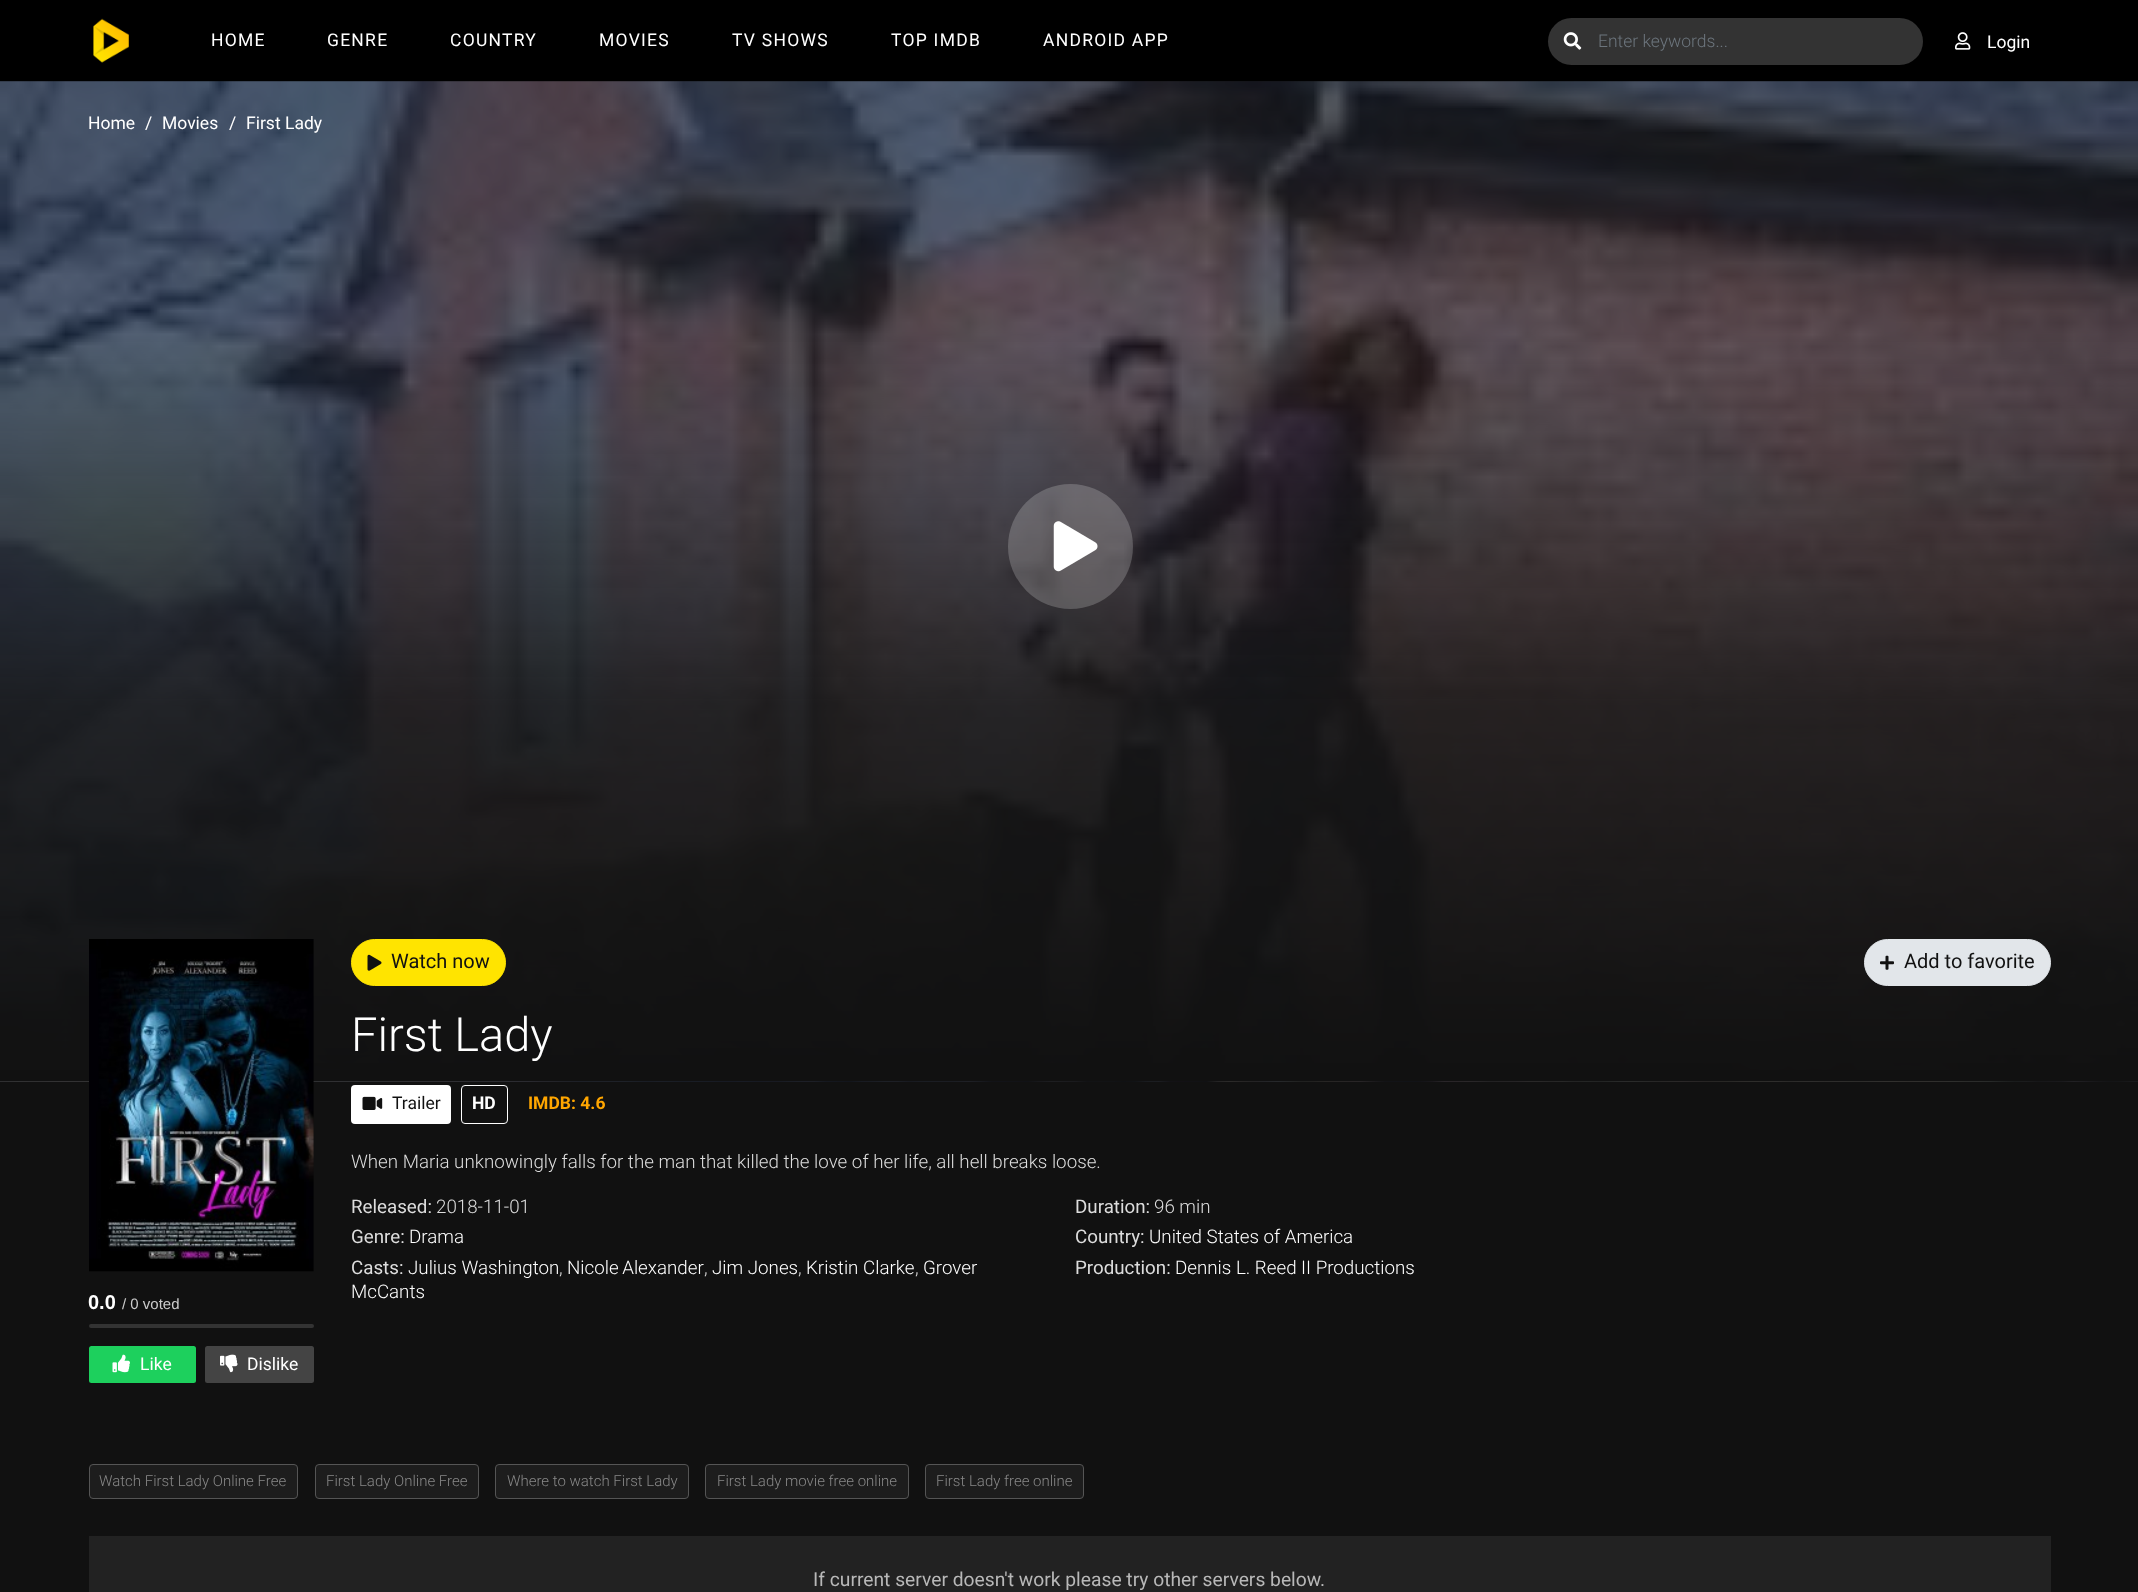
<svg xmlns="http://www.w3.org/2000/svg" width="2138" height="1592" viewBox="0 0 2138 1592">
  <rect width="100%" height="100%" fill="#111"/>
  <path d="M0 0h2138v81H0z" fill="#000"/>
  <image x="93" y="18" width="36" height="45" href="img/1.png"/>
  <rect x="1548" y="18" width="375" height="47" rx="23.5" fill="#333"/>
  <image x="1563" y="32" width="19" height="18" href="img/2.png"/>
  <image x="1955" y="32" width="16" height="18" href="img/3.png"/>
  <image x="0" y="81" width="2138" height="1001" href="img/4.png"/>
  <circle cx="1070.5" cy="546.5" r="62.5" fill="#ffffff33"/>
  <image x="1053" y="521" width="45" height="51" href="img/5.png"/>
  <rect x="351.5" y="939.5" width="154" height="46" rx="23" fill="#ffe400" stroke="#ffe400"/>
  <image x="367" y="954" width="15" height="17" href="img/6.png"/>
  <rect x="1864.5" y="939.5" width="186" height="46" rx="23" fill="#e2e6ea" stroke="#e2e6ea"/>
  <image x="1880" y="955" width="14" height="15" href="img/7.png"/>
  <rect x="351" y="1085" width="100" height="39" rx="4" fill="#fff"/>
  <image x="362" y="1096" width="21" height="14" href="img/8.png"/>
  <rect x="461.5" y="1085.5" width="46" height="38" rx="3.5" fill="none" stroke="#fff"/>
  <image x="89" y="939" width="225" height="333" href="img/9.png"/>
  <rect x="89" y="1324" width="225" height="4" rx="2" fill="#333"/>
  <rect x="89" y="1346" width="107" height="37" rx="2.5" fill="#1dd05d"/>
  <image x="112" y="1354" width="18" height="19" href="img/10.png"/>
  <rect x="205" y="1346" width="109" height="37" rx="2.5" fill="#444"/>
  <image x="220" y="1354" width="18" height="19" href="img/11.png"/>
  <rect x="89.5" y="1464.5" width="208" height="34" rx="3.5" fill="#1d1d1d" stroke="#555"/>
  <rect x="315.5" y="1464.5" width="163" height="34" rx="3.5" fill="#1d1d1d" stroke="#555"/>
  <rect x="495.5" y="1464.5" width="193" height="34" rx="3.5" fill="#1d1d1d" stroke="#555"/>
  <rect x="705.5" y="1464.5" width="203" height="34" rx="3.5" fill="#1d1d1d" stroke="#555"/>
  <rect x="925.5" y="1464.5" width="158" height="34" rx="3.5" fill="#1d1d1d" stroke="#555"/>
  <path d="M89 1536h1962v56H89z" fill="#222"/>
  <g font-family="Roboto" font-size="17.5" letter-spacing="1.25" fill="#fff">
    <text x="211" y="46">HOME</text>
    <text x="327" y="46">GENRE</text>
    <text x="450" y="46">COUNTRY</text>
    <text x="599" y="46">MOVIES</text>
    <text x="732" y="46">TV SHOWS</text>
    <text x="891" y="46">TOP IMDB</text>
    <text x="1043" y="46">ANDROID APP</text>
  </g>
  <text x="1598" y="47" font-family="Roboto" font-size="17.5" font-weight="300" fill="#6c757d">Enter keywords...</text>
  <g font-family="Roboto" font-size="17.5" fill="#fff">
    <text x="1987" y="48">Login</text>
    <text x="88" y="129">Home</text>
    <text x="145" y="129">/</text>
    <text x="162" y="129">Movies</text>
    <text x="229" y="129">/</text>
    <text x="246" y="129">First Lady</text>
  </g>
  <g font-family="Roboto" font-size="20" fill="#111">
    <text x="391" y="968">Watch now</text>
    <text x="1904" y="968">Add to favorite</text>
  </g>
  <text x="351" y="1051" font-family="Roboto" font-size="47" font-weight="300" fill="#fff">First Lady</text>
  <text x="392" y="1109" font-family="Roboto" font-size="17.5" fill="#111">Trailer</text>
  <text x="472" y="1109" font-family="Roboto" font-size="17.5" font-weight="bold" fill="#fff">HD</text>
  <text x="528" y="1109" font-family="Roboto" font-size="17.5" font-weight="bold" fill="#ffa600">IMDB: 4.6</text>
  <text x="351" y="1168" font-family="Roboto" font-size="18.75" font-weight="300" fill="#ddd">When Maria unknowingly falls for the man that killed the love of her life, all hell breaks loose.</text>
  <text x="351" y="1213" font-family="Roboto" font-size="18.75" fill="#ddd">Released:</text>
  <text x="436" y="1213" font-family="Roboto" font-size="18.75" font-weight="300" fill="#ddd">2018-11-01</text>
  <text x="351" y="1243" font-family="Roboto" font-size="18.75" fill="#ddd">Genre:</text>
  <text x="409" y="1243" font-family="Roboto" font-size="18.75" font-weight="300" fill="#fff">Drama</text>
  <text x="351" y="1274" font-family="Roboto" font-size="18.75" fill="#ddd">Casts:</text>
  <text x="408" y="1274" font-family="Roboto" font-size="18.75" font-weight="300" fill="#fff">Julius Washington</text>
  <text x="559" y="1274" font-family="Roboto" font-size="18.75" font-weight="300" fill="#ddd">,</text>
  <text x="567" y="1274" word-spacing="-1" font-family="Roboto" font-size="18.75" font-weight="300" fill="#fff">Nicole Alexander</text>
  <text x="704" y="1274" font-family="Roboto" font-size="18.75" font-weight="300" fill="#ddd">,</text>
  <text x="712" y="1274" font-family="Roboto" font-size="18.75" font-weight="300" fill="#fff">Jim Jones</text>
  <text x="798" y="1274" font-family="Roboto" font-size="18.75" font-weight="300" fill="#ddd">,</text>
  <text x="806" y="1274" font-family="Roboto" font-size="18.75" font-weight="300" fill="#fff">Kristin Clarke</text>
  <text x="915" y="1274" font-family="Roboto" font-size="18.75" font-weight="300" fill="#ddd">,</text>
  <g font-family="Roboto" font-size="18.75" font-weight="300" fill="#fff">
    <text x="923" y="1274">Grover</text>
    <text x="351" y="1298">McCants</text>
  </g>
  <text x="1075" y="1213" font-family="Roboto" font-size="18.75" fill="#ddd">Duration:</text>
  <text x="1154" y="1213" font-family="Roboto" font-size="18.75" font-weight="300" fill="#ddd">96 min</text>
  <text x="1075" y="1243" font-family="Roboto" font-size="18.75" fill="#ddd">Country:</text>
  <text x="1149" y="1243" font-family="Roboto" font-size="18.75" font-weight="300" fill="#fff">United States of America</text>
  <text x="1075" y="1274" font-family="Roboto" font-size="18.75" fill="#ddd">Production:</text>
  <text x="1175" y="1274" font-family="Roboto" font-size="18.75" font-weight="300" fill="#fff">Dennis L. Reed II Productions</text>
  <text x="88" y="1309" font-family="Liberation Sans" font-size="20" font-weight="bold" fill="#fff">0.0</text>
  <text x="122" y="1309" font-family="Liberation Sans" font-size="15" fill="#ccc">/ 0 voted</text>
  <g font-family="Roboto" font-size="17.5" fill="#fff">
    <text x="140" y="1370">Like</text>
    <text x="247" y="1370">Dislike</text>
  </g>
  <g font-family="Roboto" font-size="15" font-weight="300" fill="#888">
    <text x="99" y="1486">Watch First Lady Online Free</text>
    <text x="326" y="1486">First Lady Online Free</text>
    <text x="507" y="1486">Where to watch First Lady</text>
    <text x="717" y="1486">First Lady movie free online</text>
    <text x="936" y="1486">First Lady free online</text>
  </g>
  <text x="813" y="1586" font-family="Roboto" font-size="19.25" fill="#b8b8b8">If current server doesn't work please try other servers below.</text>
</svg>
